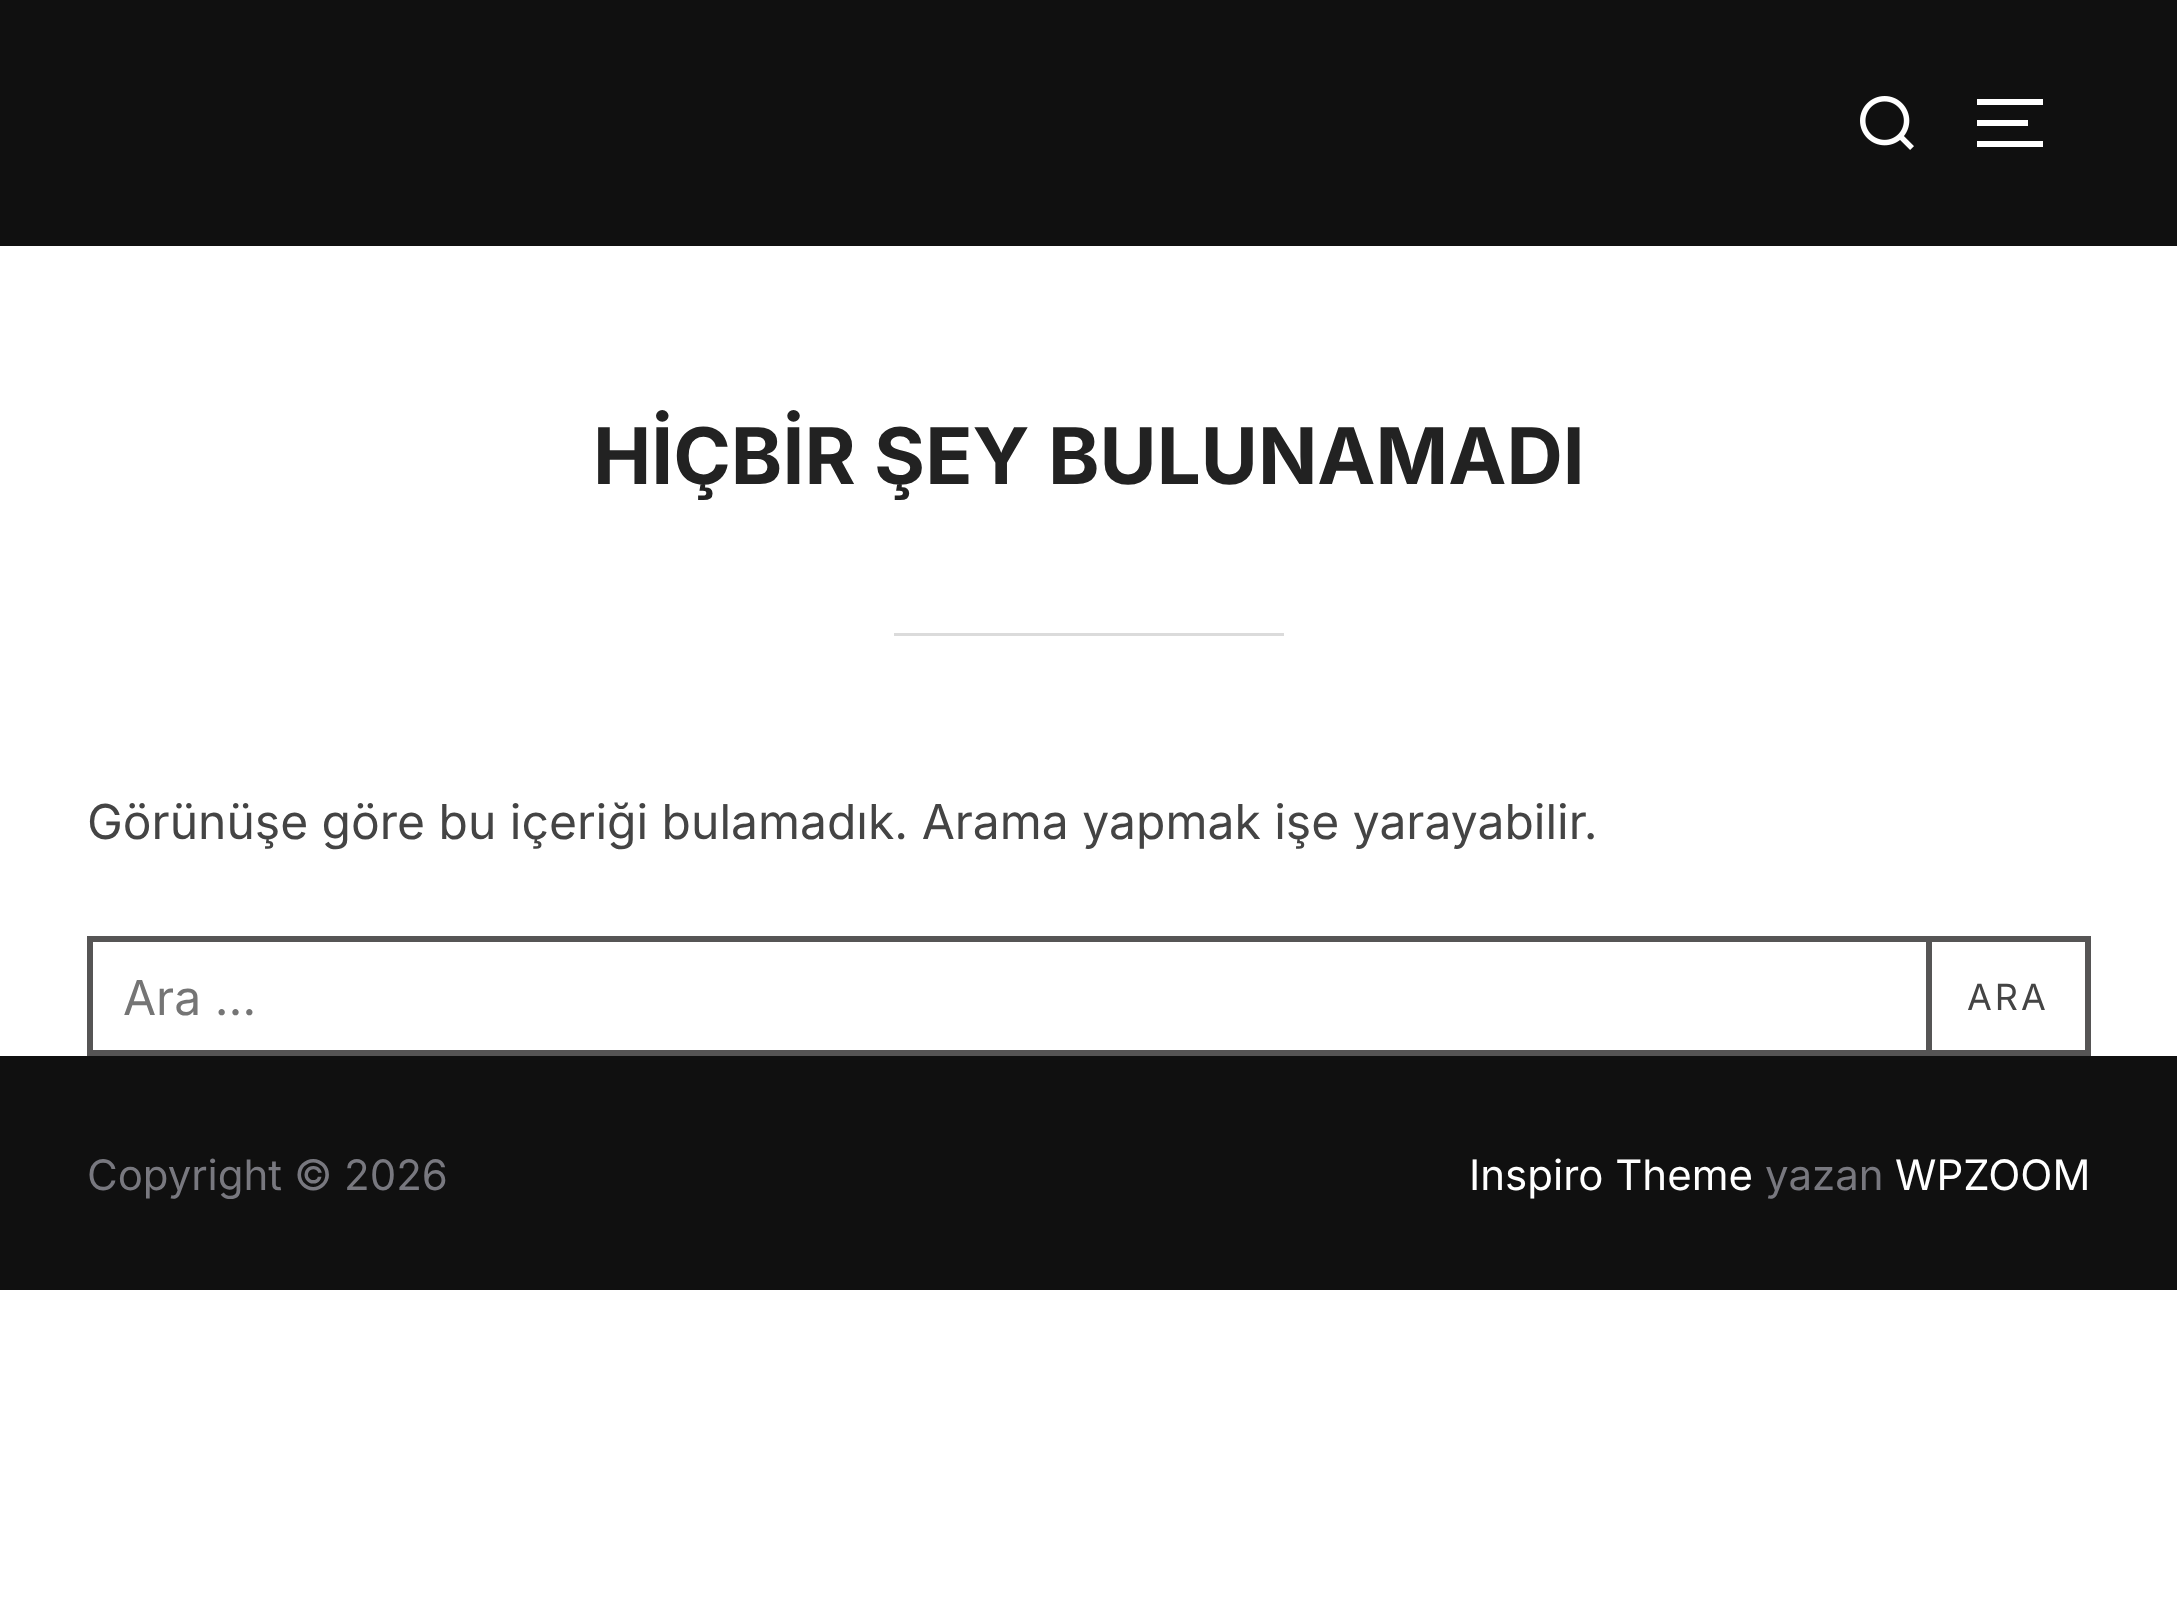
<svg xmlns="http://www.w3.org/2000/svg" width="2177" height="1619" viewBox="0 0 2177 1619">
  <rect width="100%" height="100%" fill="#fff"/>
  <path d="M0 0h2177v246H0z" fill="#101010"/>
  <image x="1860" y="96" width="54" height="54" href="img/1.png"/>
  <path d="M1977 99h66v6H1977z" fill="#fff"/>
  <path d="M1977 120h51v6H1977z" fill="#fff"/>
  <path d="M1977 141h66v6H1977z" fill="#fff"/>
  <path d="M894 633h390v3H894z" fill="#dbdbdb"/>
  <path d="M90 939h1998v114H90z" fill="none" stroke="#565555" stroke-width="6"/>
  <path d="M1929 939h159v114H1929z" fill="none" stroke="#565555" stroke-width="6"/>
  <path d="M0 1056h2177v234H0z" fill="#101010"/>
  <text x="593" y="484" font-family="Inter" font-size="78" font-weight="bold" fill="#222">HİÇBİR ŞEY BULUNAMADI</text>
  <text x="87" y="839" font-family="Inter" font-size="48" fill="#444">Görünüşe göre bu içeriği bulamadık. Arama yapmak işe yarayabilir.</text>
  <text x="123" y="1015" font-family="Inter" font-size="48" fill="#757575">Ara …</text>
  <text x="1967" y="1010" font-family="Inter" font-size="36" letter-spacing="3" fill="#444">ARA</text>
  <text x="87" y="1190" font-family="Inter" font-size="42" fill="#78787f">Copyright © 2026</text>
  <text x="1469" y="1190" font-family="Inter" font-size="42" fill="#fff">Inspiro Theme</text>
  <text x="1765" y="1190" font-family="Inter" font-size="42" fill="#78787f">yazan</text>
  <text x="1895" y="1190" font-family="Inter" font-size="42" fill="#fff">WPZOOM</text>
</svg>
